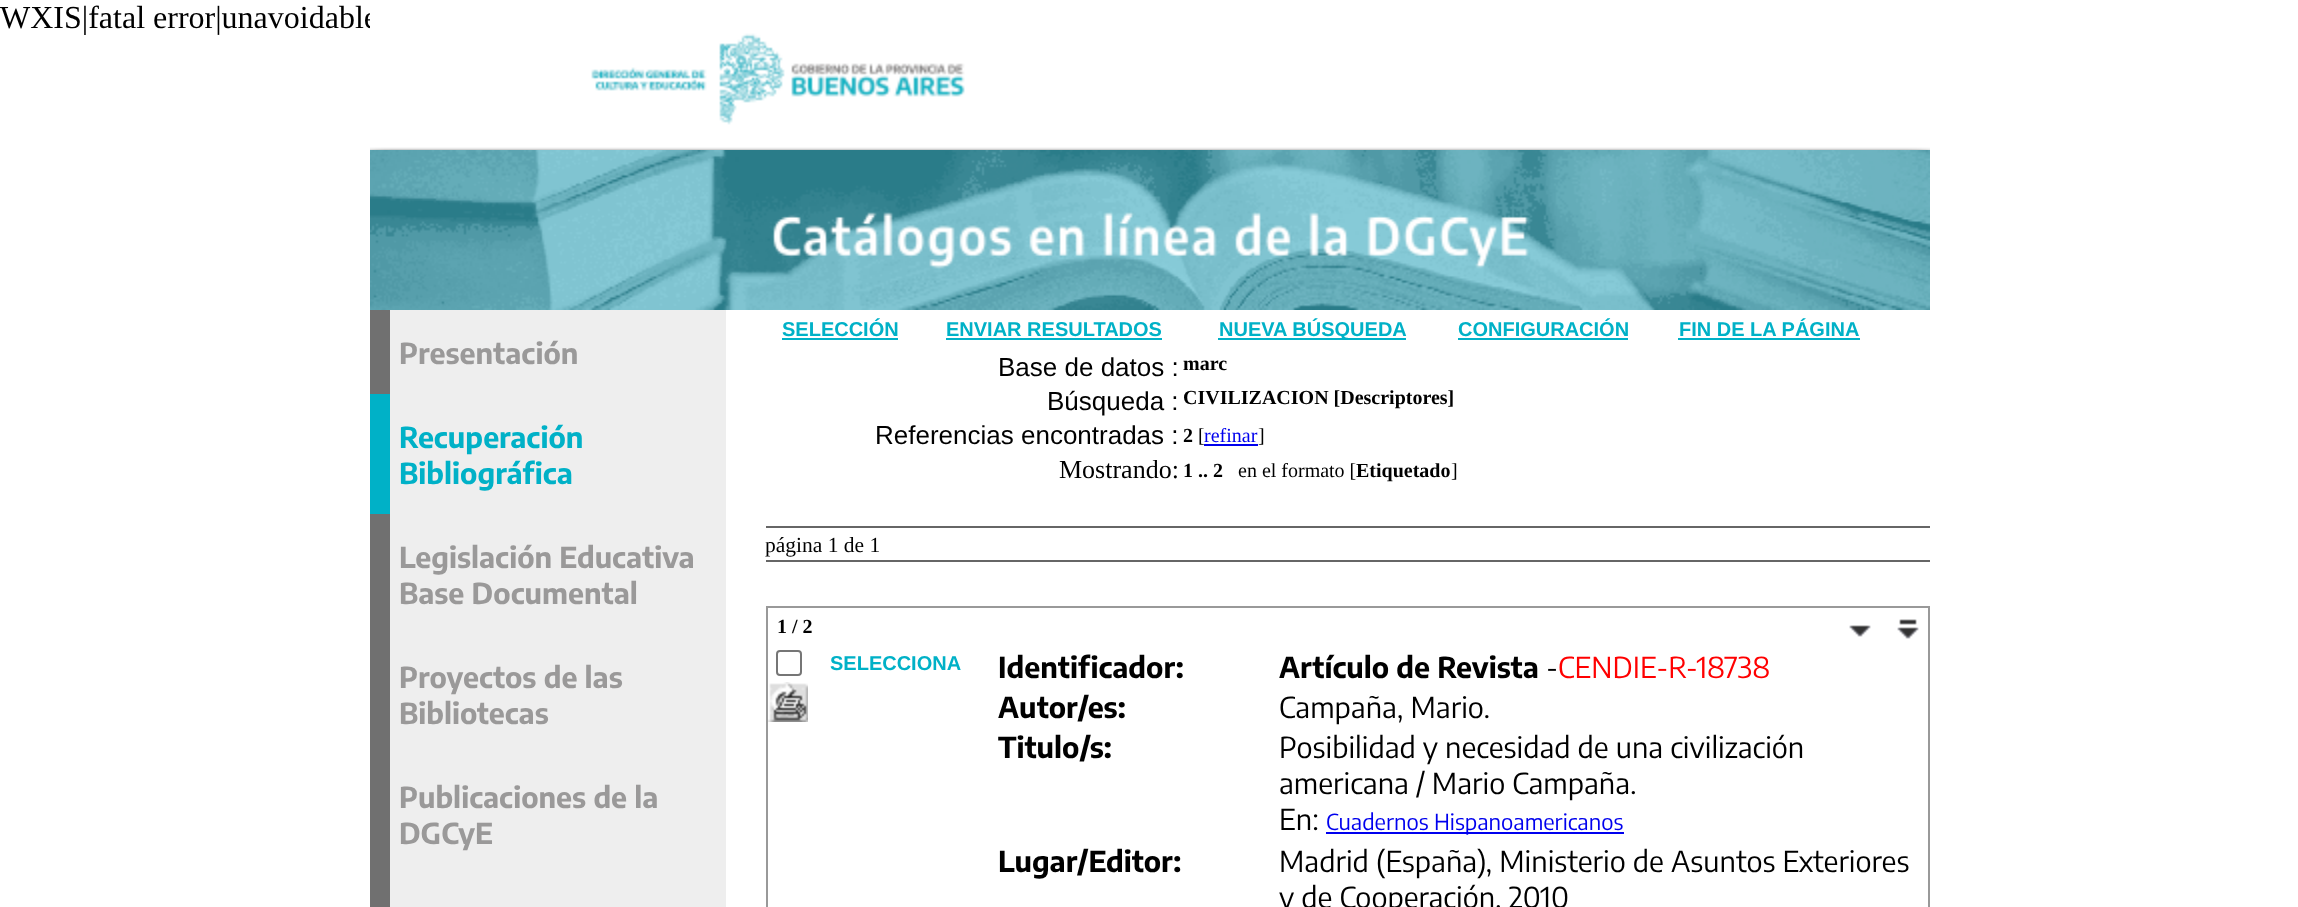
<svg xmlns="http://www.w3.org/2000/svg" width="2298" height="907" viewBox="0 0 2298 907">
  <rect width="100%" height="100%" fill="#fff"/>
  <image x="370" y="150" width="1560" height="160" href="img/2.png"/>
  <path d="M390 310h336v597H390z" fill="#eee"/>
  <path d="M370 310h20v84H370z" fill="#707070"/>
  <path d="M370 394h20v120H370z" fill="#00b1c7"/>
  <path d="M370 514h20v393H370z" fill="#707070"/>
  <path d="M782 338h116v2H782z" fill="#00b1c7"/>
  <path d="M946 338h216v2H946z" fill="#00b1c7"/>
  <path d="M1218 338h188v2H1218z" fill="#00b1c7"/>
  <path d="M1458 338h170v2H1458z" fill="#00b1c7"/>
  <path d="M1678 338h182v2H1678z" fill="#00b1c7"/>
  <path d="M1204 444h54v2H1204z" fill="#00e"/>
  <path d="M766 526h1164v2H766z" fill="#666"/>
  <path d="M766 560h1164v2H766z" fill="#666"/>
  <path d="M767 607h1162v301H767z" fill="none" stroke="#999" stroke-width="2"/>
  <image x="1849" y="625" width="22" height="12" href="img/3.png"/>
  <image x="1897" y="619" width="22" height="20" href="img/4.png"/>
  <rect x="777" y="651" width="24" height="24" rx="3" fill="none" stroke="#767676" stroke-width="2"/>
  <image x="768" y="682" width="40" height="40" href="img/5.png"/>
  <path d="M1326 832h298v2H1326z" fill="#00e"/>
  <text x="0" y="28" font-family="Liberation Serif" font-size="32" fill="#000">WXIS|fatal error|unavoidable</text>
  <image x="370" y="5" width="1560" height="145" href="img/1.png"/>
  <text x="399" y="364" font-family="Encode Sans Condensed" font-size="28.8" font-weight="bold" fill="#9a9999">Presentación</text>
  <g font-family="Encode Sans Condensed" font-size="28.8" font-weight="bold" fill="#00b1c7">
    <text x="399" y="448">Recuperación</text>
    <text x="399" y="484">Bibliográfica</text>
  </g>
  <g font-family="Encode Sans Condensed" font-size="28.8" font-weight="bold" fill="#9a9999">
    <text x="399" y="568">Legislación Educativa</text>
    <text x="399" y="604">Base Documental</text>
    <text x="399" y="688">Proyectos de las</text>
    <text x="399" y="724">Bibliotecas</text>
    <text x="399" y="808">Publicaciones de la</text>
    <text x="399" y="844">DGCyE</text>
  </g>
  <g font-family="Liberation Sans" font-size="20" font-weight="bold" fill="#00b1c7">
    <text x="782" y="336">SELECCIÓN</text>
    <text x="946" y="336">ENVIAR RESULTADOS</text>
    <text x="1219" y="336">NUEVA BÚSQUEDA</text>
    <text x="1458" y="336">CONFIGURACIÓN</text>
    <text x="1679" y="336">FIN DE LA PÁGINA</text>
  </g>
  <text x="998" y="376" font-family="Liberation Sans" font-size="26" fill="#000">Base de datos :</text>
  <text x="1183" y="370" font-family="Liberation Serif" font-size="20" font-weight="bold" fill="#000">marc</text>
  <text x="1047" y="410" font-family="Liberation Sans" font-size="26" fill="#000">Búsqueda :</text>
  <text x="1183" y="404" font-family="Liberation Serif" font-size="20" font-weight="bold" fill="#000">CIVILIZACION [Descriptores]</text>
  <text x="875" y="444" font-family="Liberation Sans" font-size="26" fill="#000">Referencias encontradas :</text>
  <text x="1183" y="442" font-family="Liberation Serif" font-size="20" font-weight="bold" fill="#000">2</text>
  <text x="1198" y="442" font-family="Liberation Serif" font-size="20" fill="#000">[</text>
  <text x="1204" y="442" font-family="Liberation Serif" font-size="20" fill="#00e">refinar</text>
  <text x="1258" y="442" font-family="Liberation Serif" font-size="20" fill="#000">]</text>
  <text x="1059" y="478" font-family="Liberation Serif" font-size="26" fill="#000">Mostrando:</text>
  <text x="1183" y="477" font-family="Liberation Serif" font-size="20" font-weight="bold" fill="#000">1 .. 2</text>
  <text x="1238" y="477" font-family="Liberation Serif" font-size="20" fill="#000">en el formato [</text>
  <text x="1356" y="477" font-family="Liberation Serif" font-size="20" font-weight="bold" fill="#000">Etiquetado</text>
  <text x="1451" y="477" font-family="Liberation Serif" font-size="20" fill="#000">]</text>
  <text x="765" y="552" font-family="Liberation Serif" font-size="21.5" fill="#000">página 1 de 1</text>
  <text x="777" y="633" font-family="Liberation Serif" font-size="20" font-weight="bold" fill="#000">1 / 2</text>
  <text x="830" y="670" font-family="Liberation Sans" font-size="20" font-weight="bold" fill="#00b1c7">SELECCIONA</text>
  <g font-family="Encode Sans Condensed" font-size="28.8" font-weight="bold" fill="#000">
    <text x="998" y="678">Identificador:</text>
    <text x="1279" y="678">Artículo de Revista</text>
  </g>
  <text x="1546" y="678" font-family="Encode Sans Condensed" font-size="28.8" fill="#000">-</text>
  <text x="1558" y="678" font-family="Encode Sans Condensed" font-size="28.8" fill="#f00">CENDIE-R-18738</text>
  <text x="998" y="718" font-family="Encode Sans Condensed" font-size="28.8" font-weight="bold" fill="#000">Autor/es:</text>
  <text x="1279" y="718" font-family="Encode Sans Condensed" font-size="28.8" fill="#000">Campaña, Mario.</text>
  <text x="998" y="758" font-family="Encode Sans Condensed" font-size="28.8" font-weight="bold" fill="#000">Titulo/s:</text>
  <g font-family="Encode Sans Condensed" font-size="28.8" fill="#000">
    <text x="1279" y="758">Posibilidad y necesidad de una civilización</text>
    <text x="1279" y="794">americana / Mario Campaña.</text>
    <text x="1279" y="830">En:</text>
  </g>
  <text x="1326" y="830" font-family="Encode Sans Condensed" font-size="22" fill="#00e">Cuadernos Hispanoamericanos</text>
  <text x="998" y="872" font-family="Encode Sans Condensed" font-size="28.8" font-weight="bold" fill="#000">Lugar/Editor:</text>
  <g font-family="Encode Sans Condensed" font-size="28.8" fill="#000">
    <text x="1279" y="872">Madrid (España), Ministerio de Asuntos Exteriores</text>
    <text x="1279" y="908">y de Cooperación, 2010</text>
  </g>
</svg>
